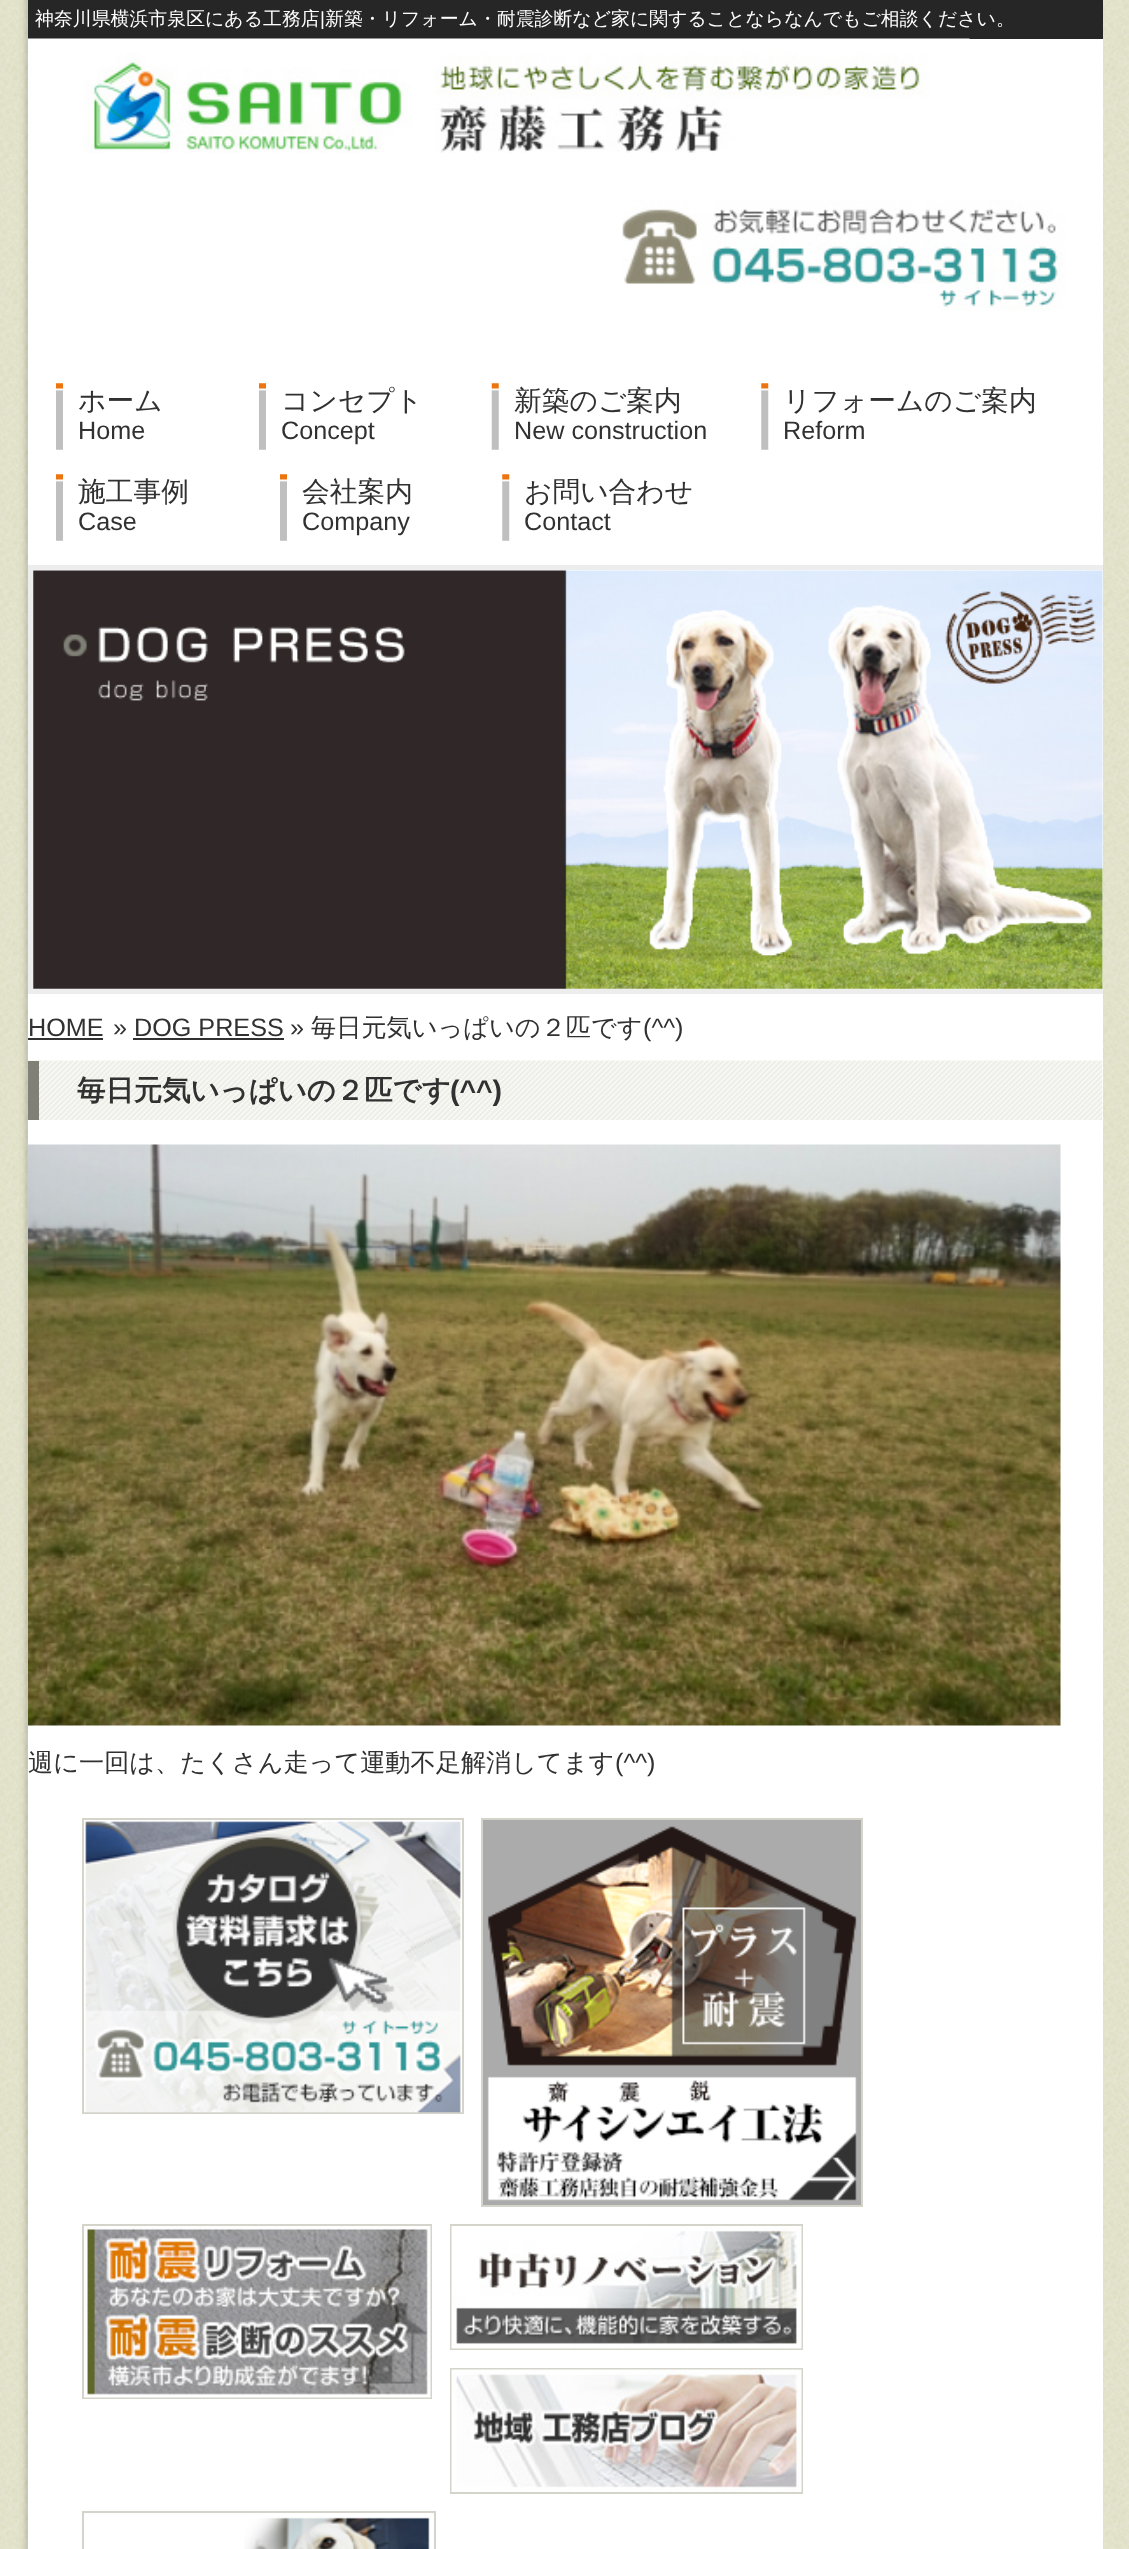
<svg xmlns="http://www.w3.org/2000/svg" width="1129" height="2549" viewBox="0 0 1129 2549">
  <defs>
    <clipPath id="clip1"><path d="M28 0h1075v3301H28z"/></clipPath>
  </defs>
  <rect width="100%" height="100%" fill="#fff"/>
  <image x="0" y="0" width="1129" height="2549" href="img/1.png"/>
  <image x="19" y="0" width="9" height="2549" href="img/2.png"/>
  <path d="M28 39h1075v2510H28z" fill="#fff"/>
  <path d="M28 0h1075v39H28z" fill="#262626"/>
  <image x="28" y="38" width="942" height="115" href="img/3.png"/>
  <image x="622" y="200" width="443" height="111" href="img/4.png"/>
  <image x="56" y="383" width="7" height="67" href="img/5.png"/>
  <image x="259" y="383" width="7" height="67" href="img/5.png"/>
  <image x="491" y="383" width="8" height="67" href="img/6.png"/>
  <image x="761" y="383" width="8" height="67" href="img/7.png"/>
  <image x="56" y="474" width="7" height="67" href="img/5.png"/>
  <image x="280" y="474" width="7" height="67" href="img/5.png"/>
  <image x="502" y="474" width="8" height="67" href="img/7.png"/>
  <g clip-path="url(#clip1)">
    <path d="M30.5 567.5h1080v424H30.5z" fill="none" stroke="#ededed" stroke-width="5"/>
  </g>
  <image x="33" y="570" width="1070" height="419" href="img/8.png"/>
  <path d="M28 1038h75v2H28z" fill="#313131"/>
  <path d="M133 1038h151v2H133z" fill="#313131"/>
  <image x="28" y="1060" width="1075" height="60" href="img/9.png"/>
  <path d="M28 1061h11v59H28z" fill="#808076"/>
  <image x="28" y="1144" width="1033" height="582" href="img/10.png"/>
  <path d="M83 1819h380v294H83z" fill="none" stroke="#d4d4cb" stroke-width="2"/>
  <image x="84" y="1821" width="378" height="292" href="img/11.png"/>
  <path d="M482 1819h380v387H482z" fill="none" stroke="#d4d4cb" stroke-width="2"/>
  <image x="483" y="1820" width="378" height="385" href="img/12.png"/>
  <path d="M83 2225h348v173H83z" fill="none" stroke="#d4d4cb" stroke-width="2"/>
  <image x="84" y="2226" width="347" height="172" href="img/13.png"/>
  <path d="M451 2225h351v124H451z" fill="none" stroke="#d4d4cb" stroke-width="2"/>
  <image x="451" y="2226" width="351" height="123" href="img/14.png"/>
  <path d="M451 2369h351v124H451z" fill="none" stroke="#d4d4cb" stroke-width="2"/>
  <image x="451" y="2369" width="351" height="123" href="img/15.png"/>
  <path d="M83 2512h352v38H83z" fill="none" stroke="#d4d4cb" stroke-width="2"/>
  <image x="244" y="2517" width="186" height="32" href="img/16.png"/>
  <text x="35" y="25" font-family="WenQuanYi Zen Hei" font-size="18.9" font-weight="500" fill="#fff">神奈川県横浜市泉区にある工務店</text>
  <text x="320" y="25" font-family="Liberation Sans" font-size="18.9" fill="#fff">|</text>
  <text x="325" y="25" font-family="WenQuanYi Zen Hei" font-size="18.9" font-weight="500" fill="#fff">新築・リフォーム・耐震診断など家に関することならなんでもご相談ください。</text>
  <text x="78" y="410" font-family="WenQuanYi Zen Hei" font-size="27.75" font-weight="500" fill="#313131">ホーム</text>
  <text x="78" y="439" font-family="Liberation Sans" font-size="25.2" fill="#313131">Home</text>
  <text x="281" y="410" font-family="WenQuanYi Zen Hei" font-size="27.75" font-weight="500" fill="#313131">コンセプト</text>
  <text x="281" y="439" font-family="Liberation Sans" font-size="25.2" fill="#313131">Concept</text>
  <text x="514" y="410" font-family="WenQuanYi Zen Hei" font-size="27.75" font-weight="500" fill="#313131">新築のご案内</text>
  <text x="514" y="439" font-family="Liberation Sans" font-size="25.2" fill="#313131">New construction</text>
  <text x="783" y="410" font-family="WenQuanYi Zen Hei" font-size="27.75" font-weight="500" fill="#313131">リフォームのご案内</text>
  <text x="783" y="439" font-family="Liberation Sans" font-size="25.2" fill="#313131">Reform</text>
  <text x="78" y="501" font-family="WenQuanYi Zen Hei" font-size="27.75" font-weight="500" fill="#313131">施工事例</text>
  <text x="78" y="530" font-family="Liberation Sans" font-size="25.2" fill="#313131">Case</text>
  <text x="302" y="501" font-family="WenQuanYi Zen Hei" font-size="27.75" font-weight="500" fill="#313131">会社案内</text>
  <text x="302" y="530" font-family="Liberation Sans" font-size="25.2" fill="#313131">Company</text>
  <text x="524" y="501" font-family="WenQuanYi Zen Hei" font-size="27.75" font-weight="500" fill="#313131">お問い合わせ</text>
  <g font-family="Liberation Sans" font-size="25.2" fill="#313131">
    <text x="524" y="530">Contact</text>
    <text x="28" y="1036">HOME</text>
    <text x="113" y="1036">»</text>
    <text x="134" y="1036">DOG PRESS</text>
    <text x="290" y="1036">»</text>
  </g>
  <text x="311" y="1036" font-family="WenQuanYi Zen Hei" font-size="25.2" font-weight="500" fill="#313131">毎日元気いっぱいの２匹です</text>
  <text x="643" y="1036" font-family="Liberation Sans" font-size="25.2" fill="#313131">(^^)</text>
  <text x="77" y="1100" font-family="WenQuanYi Zen Hei" font-size="28.4" font-weight="bold" fill="#313131">毎日元気いっぱいの２匹です</text>
  <text x="450" y="1100" font-family="Liberation Sans" font-size="28.4" font-weight="bold" fill="#313131">(^^)</text>
  <text x="28" y="1771" font-family="WenQuanYi Zen Hei" font-size="25.2" font-weight="500" fill="#313131">週に一回は、たくさん走って運動不足解消してます</text>
  <text x="615" y="1771" font-family="Liberation Sans" font-size="25.2" fill="#313131">(^^)</text>
</svg>
